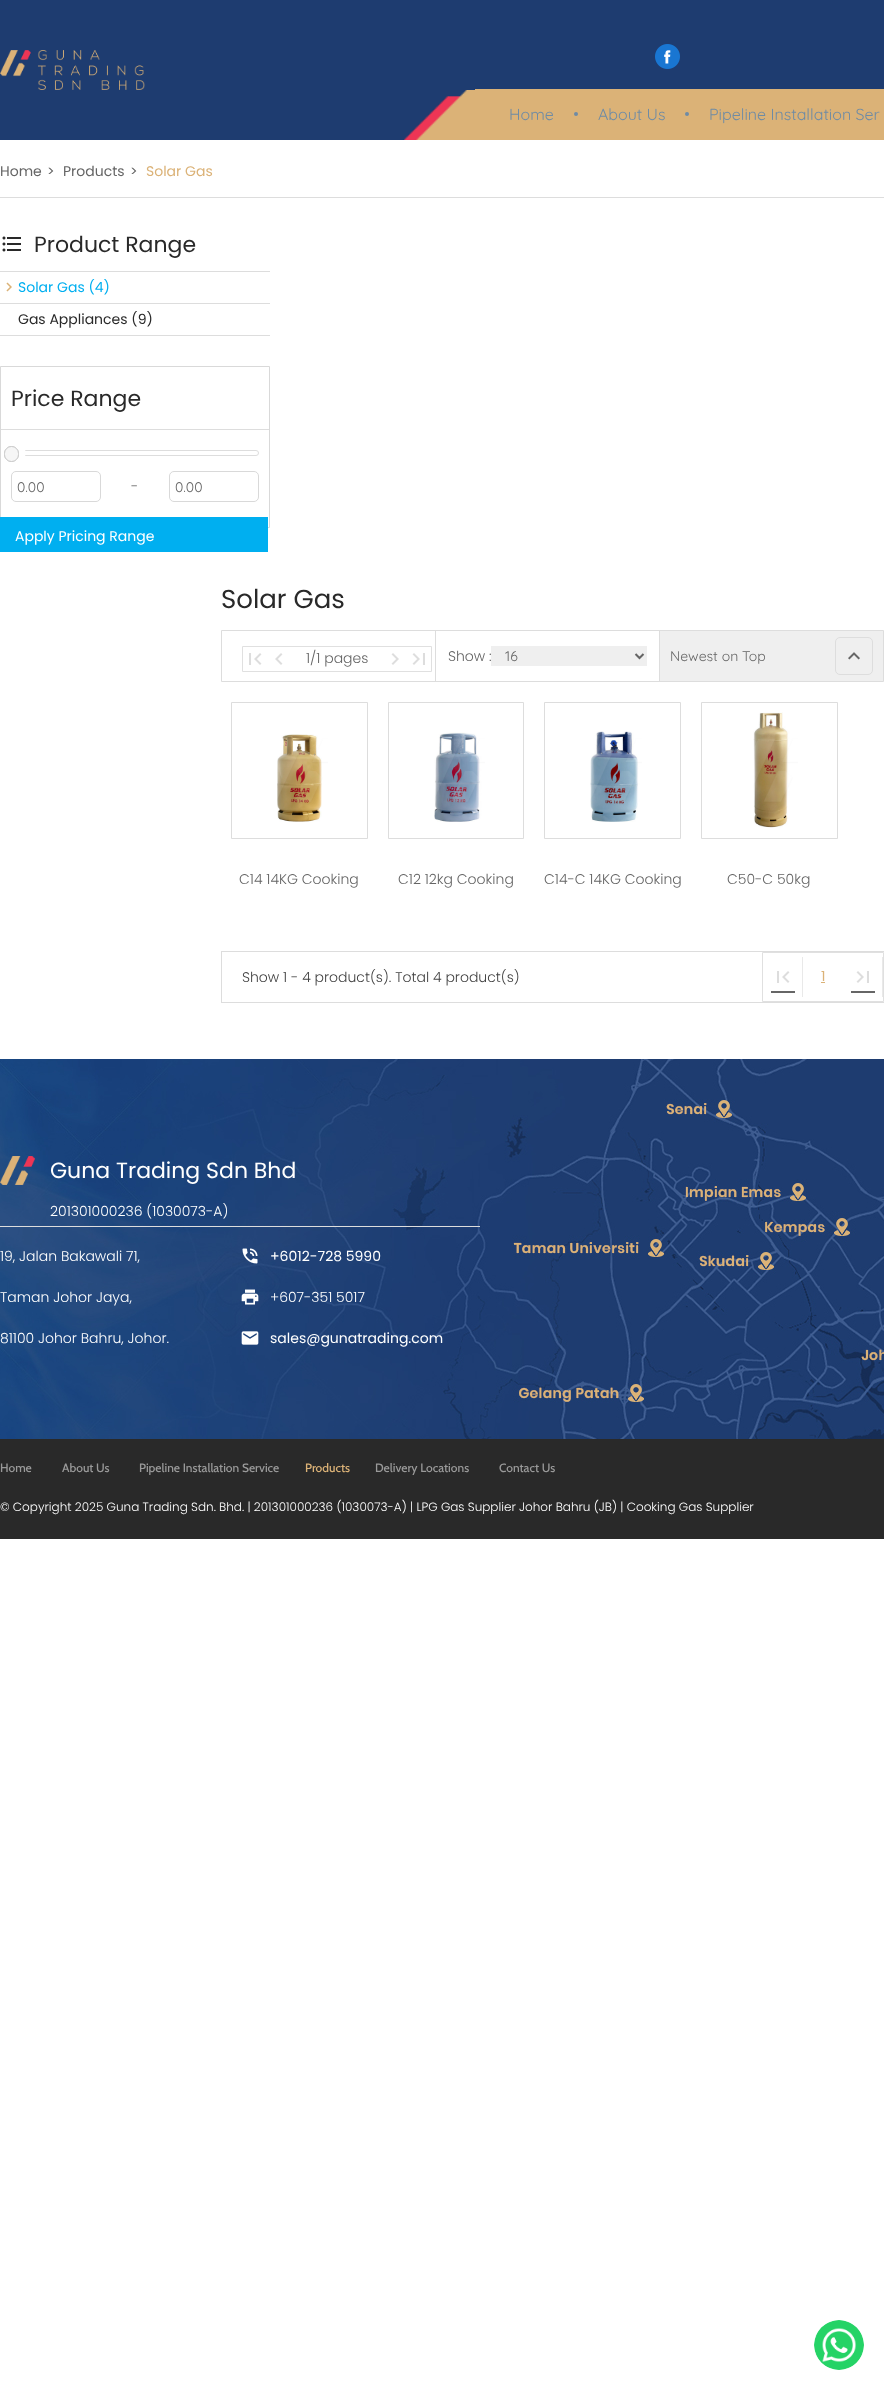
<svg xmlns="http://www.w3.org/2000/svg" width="884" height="2390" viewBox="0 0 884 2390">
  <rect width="100%" height="100%" fill="#fff"/>
  <path d="M0 0h884v140H0z" fill="#1e3c70"/>
  <image x="0" y="50" width="145" height="40" href="img/1.png"/>
  <image x="655" y="44" width="25" height="25" href="img/2.png"/>
  <image x="404" y="90" width="71" height="50" href="img/3.png"/>
  <path d="M475 89h409v51H475z" fill="#dbb277"/>
  <circle cx="576" cy="114" r="2" fill="#6e8ba5"/>
  <circle cx="687" cy="114" r="2" fill="#6e8ba5"/>
  <path d="M0 197h884v1H0z" fill="#ddd"/>
  <path d="M0 271h270v1H0z" fill="#ddd"/>
  <image x="2" y="236" width="19" height="16" href="img/4.png"/>
  <path d="M0 303h270v1H0z" fill="#ddd"/>
  <image x="6" y="282" width="6" height="10" href="img/5.png"/>
  <path d="M0 335h270v1H0z" fill="#ddd"/>
  <path d="M0.5 366.5h269v161H0.5z" fill="none" stroke="#d9d9d9"/>
  <path d="M1 429h268v1H1z" fill="#ddd"/>
  <rect x="11.5" y="450.5" width="247" height="5" rx="2.5" fill="none" stroke="#ddd"/>
  <circle cx="21" cy="453" r="5" fill="#fff"/>
  <rect x="4.5" y="446.5" width="14" height="15" rx="7" fill="none" stroke="#ccc"/>
  <rect x="4.5" y="446.5" width="14" height="15" rx="7" fill="#f6f6f6" stroke="#ccc"/>
  <rect x="11.5" y="471.5" width="89" height="30" rx="4.5" fill="none" stroke="#d9d9d9"/>
  <rect x="169.5" y="471.5" width="89" height="30" rx="4.5" fill="none" stroke="#d9d9d9"/>
  <path d="M0 517h268v35H0z" fill="#00aff0"/>
  <path d="M221.5 630.5h662v51H221.5z" fill="none" stroke="#ddd"/>
  <path d="M242.5 646.5h189v25H242.5z" fill="none" stroke="#e0e0e0"/>
  <image x="249" y="653" width="13" height="12" href="img/6.png"/>
  <image x="275" y="653" width="8" height="12" href="img/7.png"/>
  <image x="391" y="653" width="8" height="12" href="img/8.png"/>
  <image x="412" y="653" width="13" height="12" href="img/9.png"/>
  <path d="M435 631h1v50H435z" fill="#ddd"/>
  <path d="M491 646h156v20H491z" fill="#efefef"/>
  <path d="M635.5 654L639.5 658L643.5 654" fill="none" stroke="#656565" stroke-width="2"/>
  <path d="M659 631h1v50H659z" fill="#ddd"/>
  <path d="M660 631h223v50H660z" fill="#efefef"/>
  <rect x="835.5" y="637.5" width="37" height="37" rx="4.5" fill="none" stroke="#ddd"/>
  <image x="848" y="652" width="12" height="8" href="img/10.png"/>
  <path d="M231.5 702.5h136v136H231.5z" fill="none" stroke="#ddd"/>
  <image x="277" y="734" width="51" height="88" href="img/11.png"/>
  <path d="M388.5 702.5h135v136H388.5z" fill="none" stroke="#ddd"/>
  <image x="434" y="732" width="51" height="90" href="img/12.png"/>
  <path d="M544.5 702.5h136v136H544.5z" fill="none" stroke="#ddd"/>
  <image x="590" y="731" width="52" height="91" href="img/13.png"/>
  <path d="M701.5 702.5h136v136H701.5z" fill="none" stroke="#ddd"/>
  <image x="753" y="712" width="45" height="116" href="img/14.png"/>
  <path d="M221 951h663v1H221z" fill="#ddd"/>
  <path d="M221 1002h663v1H221z" fill="#ddd"/>
  <path d="M221 951h1v52H221z" fill="#ddd"/>
  <path d="M762.5 952.5h121v49H762.5z" fill="none" stroke="#e0e0e0"/>
  <path d="M802 957h1v40H802z" fill="#e9e9e9"/>
  <image x="777" y="971" width="13" height="12" href="img/6.png"/>
  <path d="M771 991h24v2H771z" fill="#666"/>
  <path d="M821 982h4v1H821z" fill="#dbb277"/>
  <path d="M882 957h1v40H882z" fill="#e9e9e9"/>
  <image x="856" y="971" width="13" height="12" href="img/9.png"/>
  <path d="M851 991h24v2H851z" fill="#666"/>
  <image x="0" y="1059" width="884" height="380" href="img/15.png"/>
  <image x="0" y="1156" width="35" height="29" href="img/16.png"/>
  <path d="M0 1226h480v1H0z" fill="#ddd"/>
  <image x="242" y="1248" width="16" height="16" href="img/17.png"/>
  <image x="241" y="1289" width="18" height="16" href="img/18.png"/>
  <image x="241" y="1331" width="18" height="14" href="img/19.png"/>
  <image x="814" y="2320" width="50" height="50" href="img/20.png"/>
  <path d="M0 1439h884v100H0z" fill="#292929"/>
  <g font-family="Quicksand" font-size="16" fill="#6e8ba5">
    <text x="509" y="120">Home</text>
    <text x="598" y="120">About Us</text>
    <text x="709" y="120">Pipeline Installation Ser</text>
  </g>
  <g font-family="Poppins" font-size="14" fill="#656565">
    <text x="0" y="176">Home</text>
    <text x="47" y="176">&gt;</text>
    <text x="63" y="176">Products</text>
    <text x="130" y="176">&gt;</text>
  </g>
  <text x="146" y="176" font-family="Poppins" font-size="14" fill="#dbb277">Solar Gas</text>
  <text x="34" y="252" font-family="Poppins" font-size="22" fill="#292929">Product Range</text>
  <text x="18" y="292" font-family="Poppins" font-size="14" fill="#00aff0">Solar Gas (4)</text>
  <text x="18" y="324" font-family="Poppins" font-size="14" fill="#292929">Gas Appliances (9)</text>
  <text x="11" y="406" font-family="Poppins" font-size="22" fill="#292929">Price Range</text>
  <text x="17" y="492" font-family="Quicksand" font-size="14" fill="#656565">0.00</text>
  <text x="131" y="491" font-family="Poppins" font-size="14" font-weight="300" fill="#656565">-</text>
  <text x="175" y="492" font-family="Quicksand" font-size="14" fill="#656565">0.00</text>
  <text x="15" y="541" font-family="Poppins" font-size="14" fill="#fff">Apply Pricing Range</text>
  <text x="221" y="608" font-family="Poppins" font-size="26" fill="#292929">Solar Gas</text>
  <g font-family="Poppins" font-size="14" font-weight="300" fill="#656565">
    <text x="306" y="663">1/1 pages</text>
    <text x="448" y="661">Show :</text>
  </g>
  <g font-family="Quicksand" font-size="14" fill="#656565">
    <text x="505" y="661">16</text>
    <text x="670" y="661">Newest on Top</text>
  </g>
  <g font-family="Poppins" font-size="14" font-weight="300" fill="#656565">
    <text x="239" y="884">C14 14KG Cooking</text>
    <text x="398" y="884">C12 12kg Cooking</text>
    <text x="544" y="884">C14-C 14KG Cooking</text>
    <text x="727" y="884">C50-C 50kg</text>
  </g>
  <text x="242" y="982" font-family="Poppins" font-size="14" font-weight="300" fill="#434343">Show 1 - 4 product(s). Total 4 product(s)</text>
  <text x="821" y="981" font-family="Poppins" font-size="14" fill="#dbb277">1</text>
  <text x="50" y="1178" font-family="Poppins" font-size="22" fill="#fff">Guna Trading Sdn Bhd</text>
  <g font-family="Poppins" font-size="14" font-weight="300" fill="#fff">
    <text x="50" y="1216">201301000236 (1030073-A)</text>
    <text x="0" y="1261">19, Jalan Bakawali 71,</text>
    <text x="0" y="1302">Taman Johor Jaya,</text>
    <text x="0" y="1343">81100 Johor Bahru, Johor.</text>
  </g>
  <text x="270" y="1261" font-family="Poppins" font-size="14" fill="#fff">+6012-728 5990</text>
  <text x="270" y="1302" font-family="Poppins" font-size="14" font-weight="300" fill="#fff">+607-351 5017</text>
  <text x="270" y="1343" font-family="Poppins" font-size="14" fill="#fff">sales@gunatrading.com</text>
  <g font-family="Cabin" font-size="12" font-weight="500" fill="#999">
    <text x="0" y="1472">Home</text>
    <text x="62" y="1472">About Us</text>
    <text x="139" y="1472">Pipeline Installation Service</text>
  </g>
  <text x="305" y="1472" font-family="Cabin" font-size="12" font-weight="500" fill="#dbb277">Products</text>
  <g font-family="Cabin" font-size="12" font-weight="500" fill="#999">
    <text x="375" y="1472">Delivery Locations</text>
    <text x="499" y="1472">Contact Us</text>
  </g>
  <text x="0" y="1511" font-family="Poppins" font-size="12" font-weight="300" fill="#fff">© Copyright 2025 Guna Trading Sdn. Bhd. | 201301000236 (1030073-A) | LPG Gas Supplier Johor Bahru (JB) | Cooking Gas Supplier</text>
</svg>
